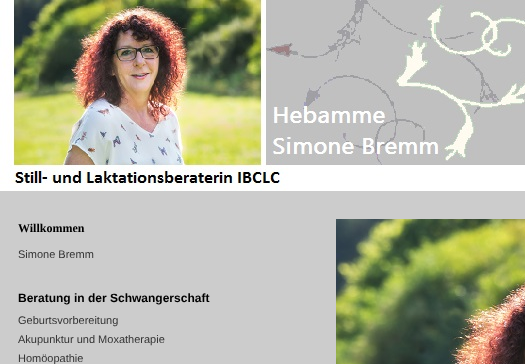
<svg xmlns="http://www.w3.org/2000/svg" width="525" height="364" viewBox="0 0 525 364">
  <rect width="100%" height="100%" fill="#ccc"/>
  <image x="0" y="0" width="525" height="191" href="img/1.png"/>
  <image x="336" y="219" width="189" height="145" href="img/2.png"/>
  <text x="18" y="232" font-family="Liberation Serif" font-size="12" font-weight="bold" fill="#000">Willkommen</text>
  <text x="18" y="258" font-family="Liberation Sans" font-size="11" fill="#333">Simone Bremm</text>
  <text x="18" y="302" font-family="Liberation Sans" font-size="12" font-weight="bold" fill="#000">Beratung in der Schwangerschaft</text>
  <g font-family="Liberation Sans" font-size="11" fill="#333">
    <text x="18" y="324">Geburtsvorbereitung</text>
    <text x="18" y="343">Akupunktur und Moxatherapie</text>
    <text x="18" y="362">Homöopathie</text>
  </g>
</svg>
